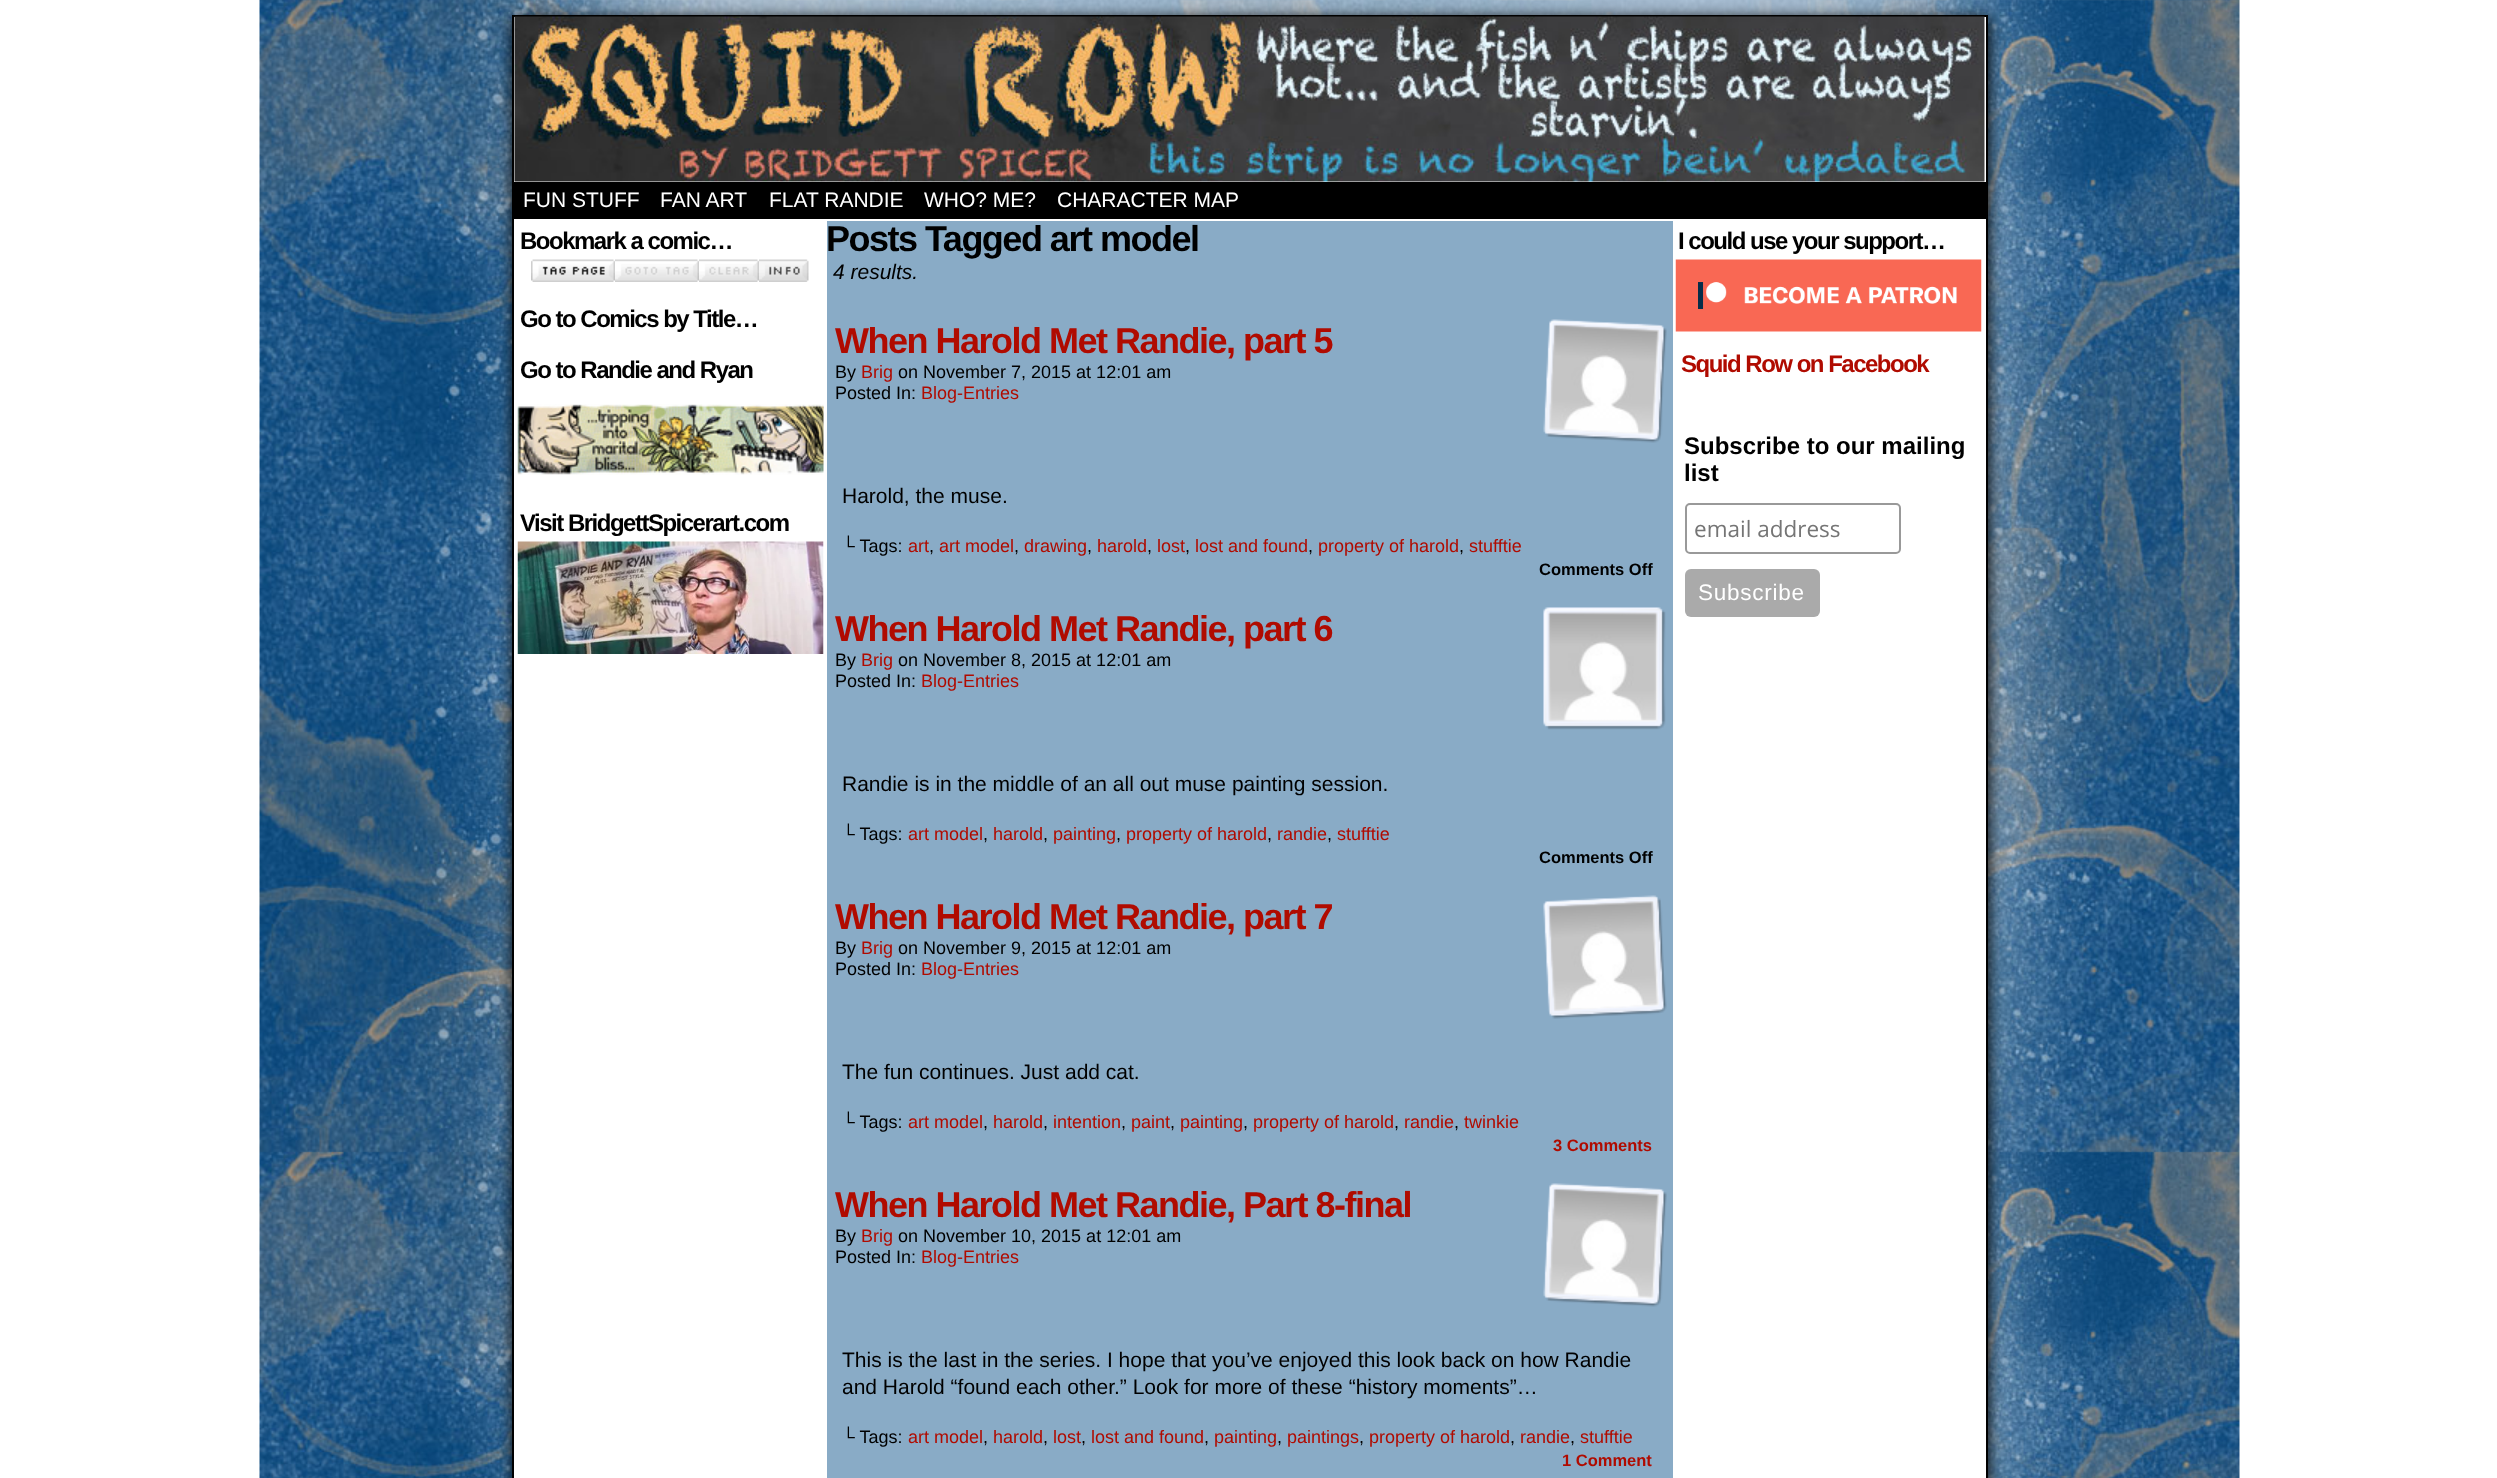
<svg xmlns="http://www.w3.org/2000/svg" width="2497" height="1478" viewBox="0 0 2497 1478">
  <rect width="100%" height="100%" fill="#fff"/>
  <image x="259" y="0" width="1981" height="1478" href="img/1.png"/>
  <path d="M513 18h1476v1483H513z" fill="#000" filter="blur(7.5px)"/>
  <path d="M513 16h1474v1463H513z" fill="#fff" stroke="#000" stroke-width="2"/>
  <image x="514" y="16" width="1471" height="166" href="img/2.png"/>
  <path d="M514 182h1472v37H514z" fill="#000"/>
  <image x="531" y="259" width="84" height="23" href="img/3.png"/>
  <image x="615" y="259" width="84" height="23" href="img/4.png"/>
  <image x="699" y="259" width="60" height="23" href="img/5.png"/>
  <image x="759" y="259" width="50" height="23" href="img/6.png"/>
  <image x="517" y="404" width="307" height="71" href="img/7.png"/>
  <image x="517" y="541" width="307" height="113" href="img/8.png"/>
  <path d="M827 221h846v1257H827z" fill="#89abc6"/>
  <image x="1543" y="319" width="124" height="124" href="img/9.png"/>
  <image x="1543" y="607" width="123" height="123" href="img/10.png"/>
  <image x="1543" y="895" width="124" height="124" href="img/11.png"/>
  <image x="1543" y="1183" width="124" height="124" href="img/9.png"/>
  <image x="1675" y="259" width="307" height="73" href="img/12.png"/>
  <rect x="1686" y="504" width="214" height="49" rx="4" fill="none" stroke="#999" stroke-width="2"/>
  <rect x="1685" y="569" width="135" height="48" rx="6" fill="#aaa"/>
  <g font-family="Liberation Sans" font-size="21" fill="#fff">
    <text x="523" y="207">FUN STUFF</text>
    <text x="660" y="207">FAN ART</text>
    <text x="769" y="207">FLAT RANDIE</text>
    <text x="924" y="207">WHO? ME?</text>
    <text x="1057" y="207">CHARACTER MAP</text>
  </g>
  <g font-family="Liberation Sans" font-size="24" font-weight="bold" letter-spacing="-1.5" fill="#000">
    <text x="520" y="249">Bookmark a comic…</text>
    <text x="520" y="327">Go to Comics by Title…</text>
    <text x="520" y="378">Go to Randie and Ryan</text>
    <text x="520" y="531">Visit BridgettSpicerart.com</text>
  </g>
  <text x="826" y="251" font-family="Liberation Sans" font-size="36" font-weight="bold" letter-spacing="-1.5" fill="#000">Posts Tagged art model</text>
  <text x="833" y="279" font-family="Liberation Sans" font-size="21" font-style="italic" fill="#000">4 results.</text>
  <text x="835" y="353" font-family="Liberation Sans" font-size="36" font-weight="bold" letter-spacing="-1.5" fill="#b00b00">When Harold Met Randie, part 5</text>
  <text x="835" y="378" font-family="Liberation Sans" font-size="18" fill="#000">By</text>
  <text x="861" y="378" font-family="Liberation Sans" font-size="18" fill="#b00b00">Brig</text>
  <g font-family="Liberation Sans" font-size="18" fill="#000">
    <text x="898" y="378">on November 7, 2015 at 12:01 am</text>
    <text x="835" y="399">Posted In:</text>
  </g>
  <text x="921" y="399" font-family="Liberation Sans" font-size="18" fill="#b00b00">Blog-Entries</text>
  <text x="842" y="503" font-family="Liberation Sans" font-size="21" fill="#000">Harold, the muse.</text>
  <text x="842" y="552" font-family="Liberation Sans" font-size="18" fill="#000">└ Tags:</text>
  <text x="908" y="552" font-family="Liberation Sans" font-size="18" fill="#b00b00">art</text>
  <text x="929" y="552" font-family="Liberation Sans" font-size="18" fill="#000">,</text>
  <text x="939" y="552" font-family="Liberation Sans" font-size="18" fill="#b00b00">art model</text>
  <text x="1014" y="552" font-family="Liberation Sans" font-size="18" fill="#000">,</text>
  <text x="1024" y="552" font-family="Liberation Sans" font-size="18" fill="#b00b00">drawing</text>
  <text x="1087" y="552" font-family="Liberation Sans" font-size="18" fill="#000">,</text>
  <text x="1097" y="552" font-family="Liberation Sans" font-size="18" fill="#b00b00">harold</text>
  <text x="1147" y="552" font-family="Liberation Sans" font-size="18" fill="#000">,</text>
  <text x="1157" y="552" font-family="Liberation Sans" font-size="18" fill="#b00b00">lost</text>
  <text x="1185" y="552" font-family="Liberation Sans" font-size="18" fill="#000">,</text>
  <text x="1195" y="552" font-family="Liberation Sans" font-size="18" fill="#b00b00">lost and found</text>
  <text x="1308" y="552" font-family="Liberation Sans" font-size="18" fill="#000">,</text>
  <text x="1318" y="552" font-family="Liberation Sans" font-size="18" fill="#b00b00">property of harold</text>
  <text x="1459" y="552" font-family="Liberation Sans" font-size="18" fill="#000">,</text>
  <text x="1469" y="552" font-family="Liberation Sans" font-size="18" fill="#b00b00">stufftie</text>
  <text x="1539" y="575" font-family="Liberation Sans" font-size="16.5" font-weight="bold" fill="#000">Comments Off</text>
  <text x="835" y="641" font-family="Liberation Sans" font-size="36" font-weight="bold" letter-spacing="-1.5" fill="#b00b00">When Harold Met Randie, part 6</text>
  <text x="835" y="666" font-family="Liberation Sans" font-size="18" fill="#000">By</text>
  <text x="861" y="666" font-family="Liberation Sans" font-size="18" fill="#b00b00">Brig</text>
  <g font-family="Liberation Sans" font-size="18" fill="#000">
    <text x="898" y="666">on November 8, 2015 at 12:01 am</text>
    <text x="835" y="687">Posted In:</text>
  </g>
  <text x="921" y="687" font-family="Liberation Sans" font-size="18" fill="#b00b00">Blog-Entries</text>
  <text x="842" y="791" font-family="Liberation Sans" font-size="21" fill="#000">Randie is in the middle of an all out muse painting session.</text>
  <text x="842" y="840" font-family="Liberation Sans" font-size="18" fill="#000">└ Tags:</text>
  <text x="908" y="840" font-family="Liberation Sans" font-size="18" fill="#b00b00">art model</text>
  <text x="983" y="840" font-family="Liberation Sans" font-size="18" fill="#000">,</text>
  <text x="993" y="840" font-family="Liberation Sans" font-size="18" fill="#b00b00">harold</text>
  <text x="1043" y="840" font-family="Liberation Sans" font-size="18" fill="#000">,</text>
  <text x="1053" y="840" font-family="Liberation Sans" font-size="18" fill="#b00b00">painting</text>
  <text x="1116" y="840" font-family="Liberation Sans" font-size="18" fill="#000">,</text>
  <text x="1126" y="840" font-family="Liberation Sans" font-size="18" fill="#b00b00">property of harold</text>
  <text x="1267" y="840" font-family="Liberation Sans" font-size="18" fill="#000">,</text>
  <text x="1277" y="840" font-family="Liberation Sans" font-size="18" fill="#b00b00">randie</text>
  <text x="1327" y="840" font-family="Liberation Sans" font-size="18" fill="#000">,</text>
  <text x="1337" y="840" font-family="Liberation Sans" font-size="18" fill="#b00b00">stufftie</text>
  <text x="1539" y="863" font-family="Liberation Sans" font-size="16.5" font-weight="bold" fill="#000">Comments Off</text>
  <text x="835" y="929" font-family="Liberation Sans" font-size="36" font-weight="bold" letter-spacing="-1.5" fill="#b00b00">When Harold Met Randie, part 7</text>
  <text x="835" y="954" font-family="Liberation Sans" font-size="18" fill="#000">By</text>
  <text x="861" y="954" font-family="Liberation Sans" font-size="18" fill="#b00b00">Brig</text>
  <g font-family="Liberation Sans" font-size="18" fill="#000">
    <text x="898" y="954">on November 9, 2015 at 12:01 am</text>
    <text x="835" y="975">Posted In:</text>
  </g>
  <text x="921" y="975" font-family="Liberation Sans" font-size="18" fill="#b00b00">Blog-Entries</text>
  <text x="842" y="1079" font-family="Liberation Sans" font-size="21" fill="#000">The fun continues. Just add cat.</text>
  <text x="842" y="1128" font-family="Liberation Sans" font-size="18" fill="#000">└ Tags:</text>
  <text x="908" y="1128" font-family="Liberation Sans" font-size="18" fill="#b00b00">art model</text>
  <text x="983" y="1128" font-family="Liberation Sans" font-size="18" fill="#000">,</text>
  <text x="993" y="1128" font-family="Liberation Sans" font-size="18" fill="#b00b00">harold</text>
  <text x="1043" y="1128" font-family="Liberation Sans" font-size="18" fill="#000">,</text>
  <text x="1053" y="1128" font-family="Liberation Sans" font-size="18" fill="#b00b00">intention</text>
  <text x="1121" y="1128" font-family="Liberation Sans" font-size="18" fill="#000">,</text>
  <text x="1131" y="1128" font-family="Liberation Sans" font-size="18" fill="#b00b00">paint</text>
  <text x="1170" y="1128" font-family="Liberation Sans" font-size="18" fill="#000">,</text>
  <text x="1180" y="1128" font-family="Liberation Sans" font-size="18" fill="#b00b00">painting</text>
  <text x="1243" y="1128" font-family="Liberation Sans" font-size="18" fill="#000">,</text>
  <text x="1253" y="1128" font-family="Liberation Sans" font-size="18" fill="#b00b00">property of harold</text>
  <text x="1394" y="1128" font-family="Liberation Sans" font-size="18" fill="#000">,</text>
  <text x="1404" y="1128" font-family="Liberation Sans" font-size="18" fill="#b00b00">randie</text>
  <text x="1454" y="1128" font-family="Liberation Sans" font-size="18" fill="#000">,</text>
  <text x="1464" y="1128" font-family="Liberation Sans" font-size="18" fill="#b00b00">twinkie</text>
  <text x="1553" y="1151" font-family="Liberation Sans" font-size="16.5" font-weight="bold" fill="#b00b00">3 Comments</text>
  <text x="835" y="1217" font-family="Liberation Sans" font-size="36" font-weight="bold" letter-spacing="-1.5" fill="#b00b00">When Harold Met Randie, Part 8-final</text>
  <text x="835" y="1242" font-family="Liberation Sans" font-size="18" fill="#000">By</text>
  <text x="861" y="1242" font-family="Liberation Sans" font-size="18" fill="#b00b00">Brig</text>
  <g font-family="Liberation Sans" font-size="18" fill="#000">
    <text x="898" y="1242">on November 10, 2015 at 12:01 am</text>
    <text x="835" y="1263">Posted In:</text>
  </g>
  <text x="921" y="1263" font-family="Liberation Sans" font-size="18" fill="#b00b00">Blog-Entries</text>
  <g font-family="Liberation Sans" font-size="21" fill="#000">
    <text x="842" y="1367">This is the last in the series. I hope that you’ve enjoyed this look back on how Randie</text>
    <text x="842" y="1394">and Harold “found each other.” Look for more of these “history moments”…</text>
  </g>
  <text x="842" y="1443" font-family="Liberation Sans" font-size="18" fill="#000">└ Tags:</text>
  <text x="908" y="1443" font-family="Liberation Sans" font-size="18" fill="#b00b00">art model</text>
  <text x="983" y="1443" font-family="Liberation Sans" font-size="18" fill="#000">,</text>
  <text x="993" y="1443" font-family="Liberation Sans" font-size="18" fill="#b00b00">harold</text>
  <text x="1043" y="1443" font-family="Liberation Sans" font-size="18" fill="#000">,</text>
  <text x="1053" y="1443" font-family="Liberation Sans" font-size="18" fill="#b00b00">lost</text>
  <text x="1081" y="1443" font-family="Liberation Sans" font-size="18" fill="#000">,</text>
  <text x="1091" y="1443" font-family="Liberation Sans" font-size="18" fill="#b00b00">lost and found</text>
  <text x="1204" y="1443" font-family="Liberation Sans" font-size="18" fill="#000">,</text>
  <text x="1214" y="1443" font-family="Liberation Sans" font-size="18" fill="#b00b00">painting</text>
  <text x="1277" y="1443" font-family="Liberation Sans" font-size="18" fill="#000">,</text>
  <text x="1287" y="1443" font-family="Liberation Sans" font-size="18" fill="#b00b00">paintings</text>
  <text x="1359" y="1443" font-family="Liberation Sans" font-size="18" fill="#000">,</text>
  <text x="1369" y="1443" font-family="Liberation Sans" font-size="18" fill="#b00b00">property of harold</text>
  <text x="1510" y="1443" font-family="Liberation Sans" font-size="18" fill="#000">,</text>
  <text x="1520" y="1443" font-family="Liberation Sans" font-size="18" fill="#b00b00">randie</text>
  <text x="1570" y="1443" font-family="Liberation Sans" font-size="18" fill="#000">,</text>
  <text x="1580" y="1443" font-family="Liberation Sans" font-size="18" fill="#b00b00">stufftie</text>
  <text x="1562" y="1466" font-family="Liberation Sans" font-size="16.5" font-weight="bold" fill="#b00b00">1 Comment</text>
  <text x="1678" y="249" font-family="Liberation Sans" font-size="24" font-weight="bold" letter-spacing="-1.5" fill="#000">I could use your support…</text>
  <text x="1681" y="372" font-family="Liberation Sans" font-size="24" font-weight="bold" letter-spacing="-1.5" fill="#b00b00">Squid Row on Facebook</text>
  <g font-family="Liberation Sans" font-size="24" font-weight="bold" fill="#000">
    <text x="1684" y="454">Subscribe to our mailing</text>
    <text x="1684" y="481">list</text>
  </g>
  <text x="1694" y="537" font-family="Open Sans" font-size="22.5" fill="#757575">email address</text>
  <text x="1698" y="600" font-family="Liberation Sans" font-size="22.5" letter-spacing="0.75" fill="#fff">Subscribe</text>
</svg>
